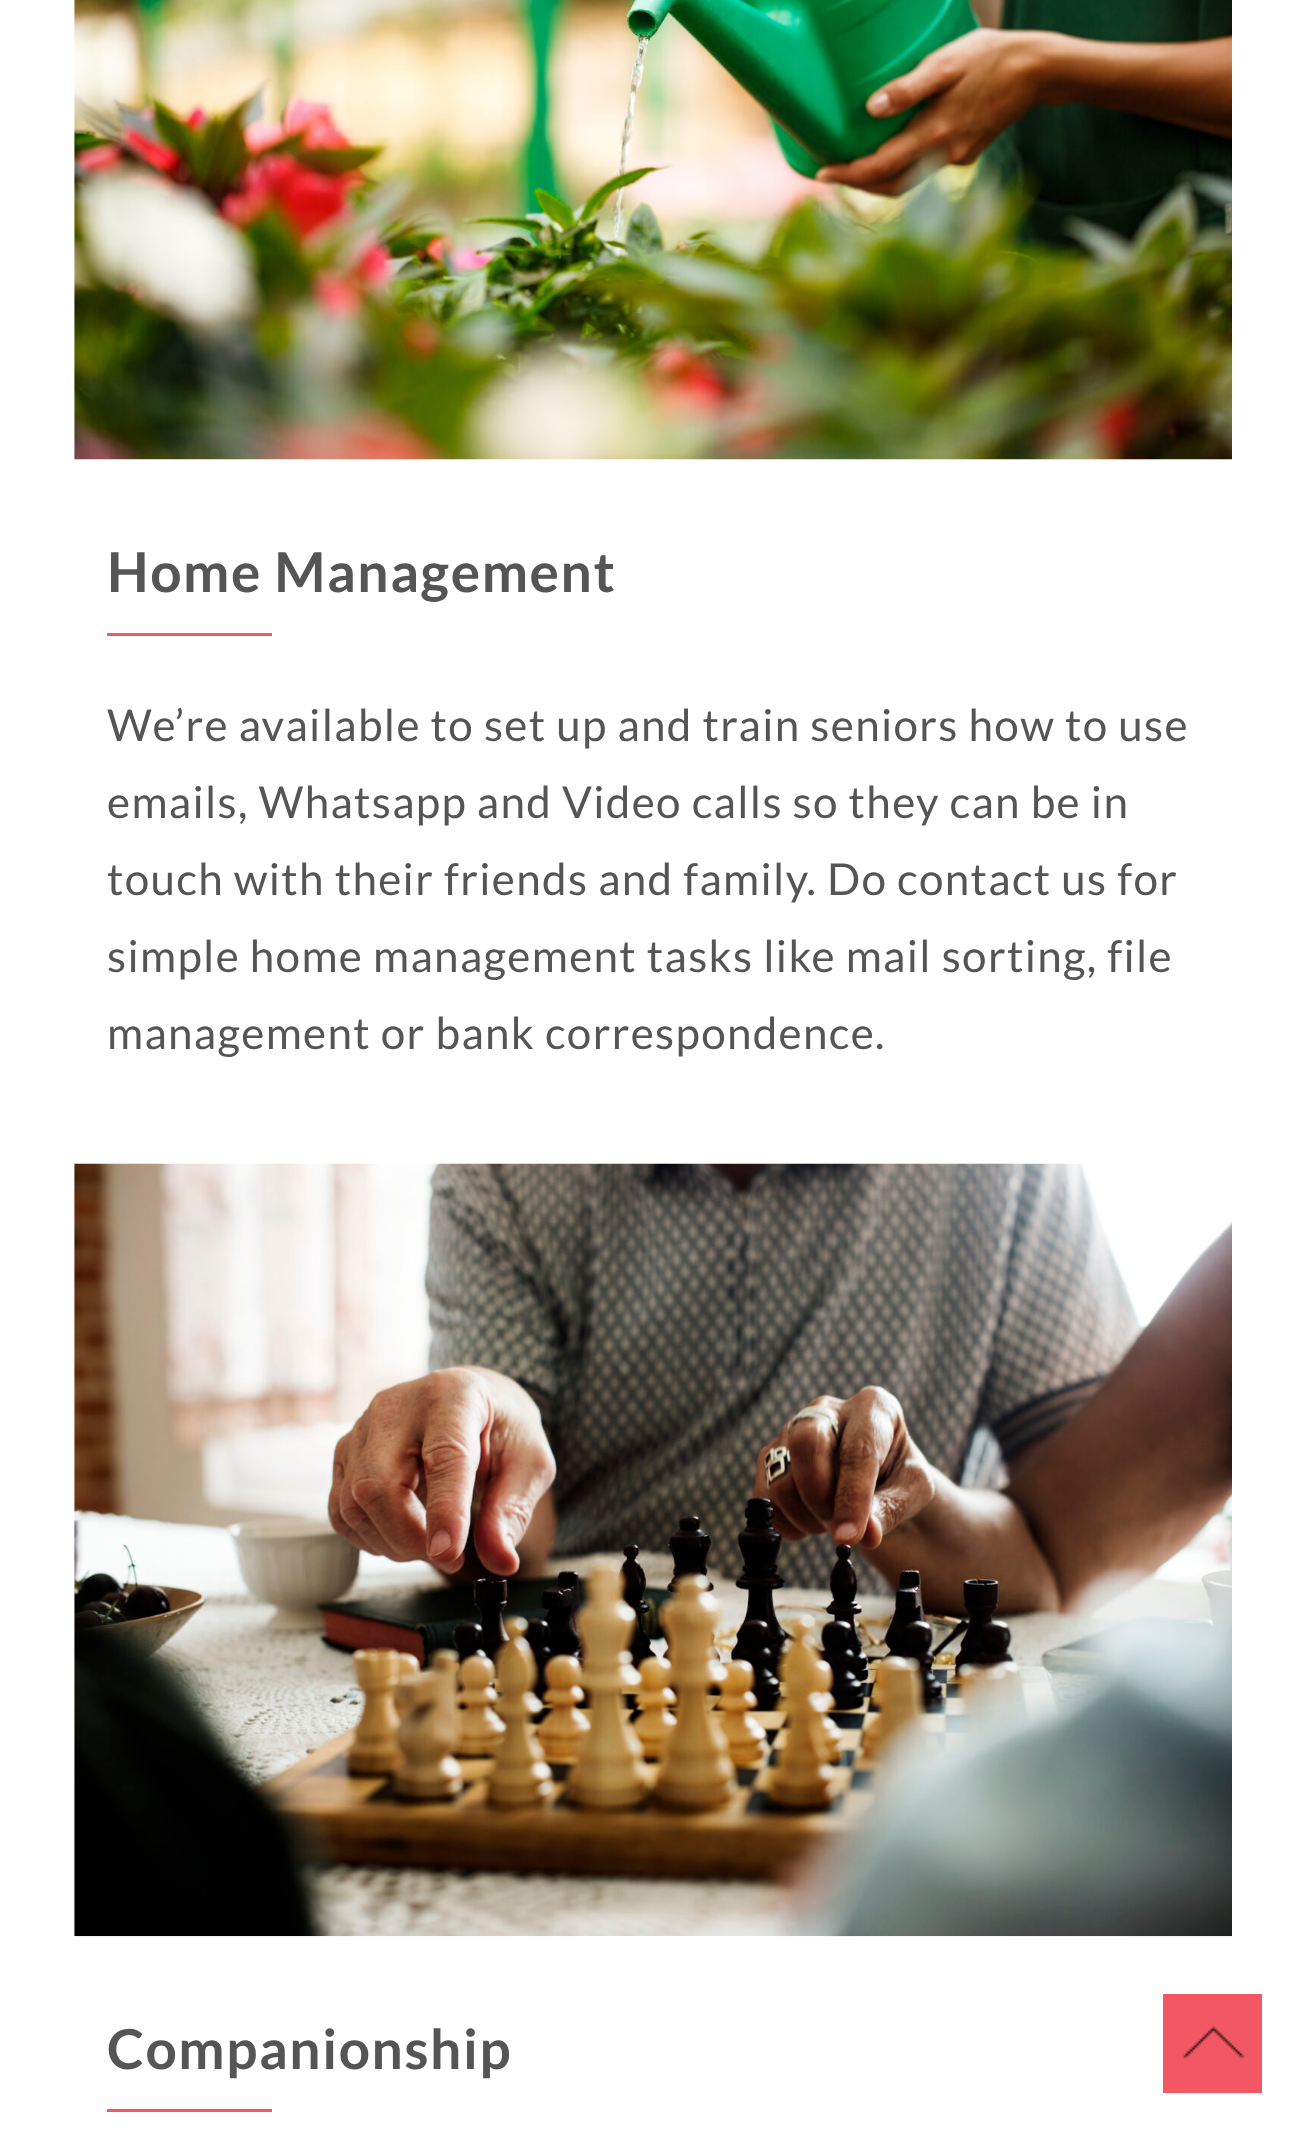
<svg xmlns="http://www.w3.org/2000/svg" width="1304" height="2135" viewBox="0 0 1304 2135">
  <rect width="100%" height="100%" fill="#fff"/>
  <image x="74" y="0" width="1158" height="460" href="img/1.png"/>
  <path d="M107 633h165v3H107z" fill="#f25764"/>
  <image x="74" y="1163" width="1158" height="774" href="img/2.png"/>
  <path d="M107 2109h165v3H107z" fill="#f25764"/>
  <path d="M1163 1994h99v99H1163z" fill="#f25764"/>
  <image x="1183" y="2026" width="62" height="33" href="img/3.png"/>
  <text x="107" y="592" font-family="Lato" font-size="55" font-weight="bold" letter-spacing="1.6" fill="#555">Home Management</text>
  <g font-family="Lato" font-size="44" letter-spacing="1.32" fill="#555">
    <text x="107" y="741">We’re available to set up and train seniors how to use</text>
    <text x="107" y="818">emails, Whatsapp and Video calls so they can be in</text>
    <text x="107" y="895">touch with their friends and family. Do contact us for</text>
    <text x="107" y="972">simple home management tasks like mail sorting, file</text>
    <text x="107" y="1049">management or bank correspondence.</text>
  </g>
  <text x="107" y="2069" font-family="Lato" font-size="55" font-weight="bold" letter-spacing="1.6" fill="#555">Companionship</text>
</svg>
